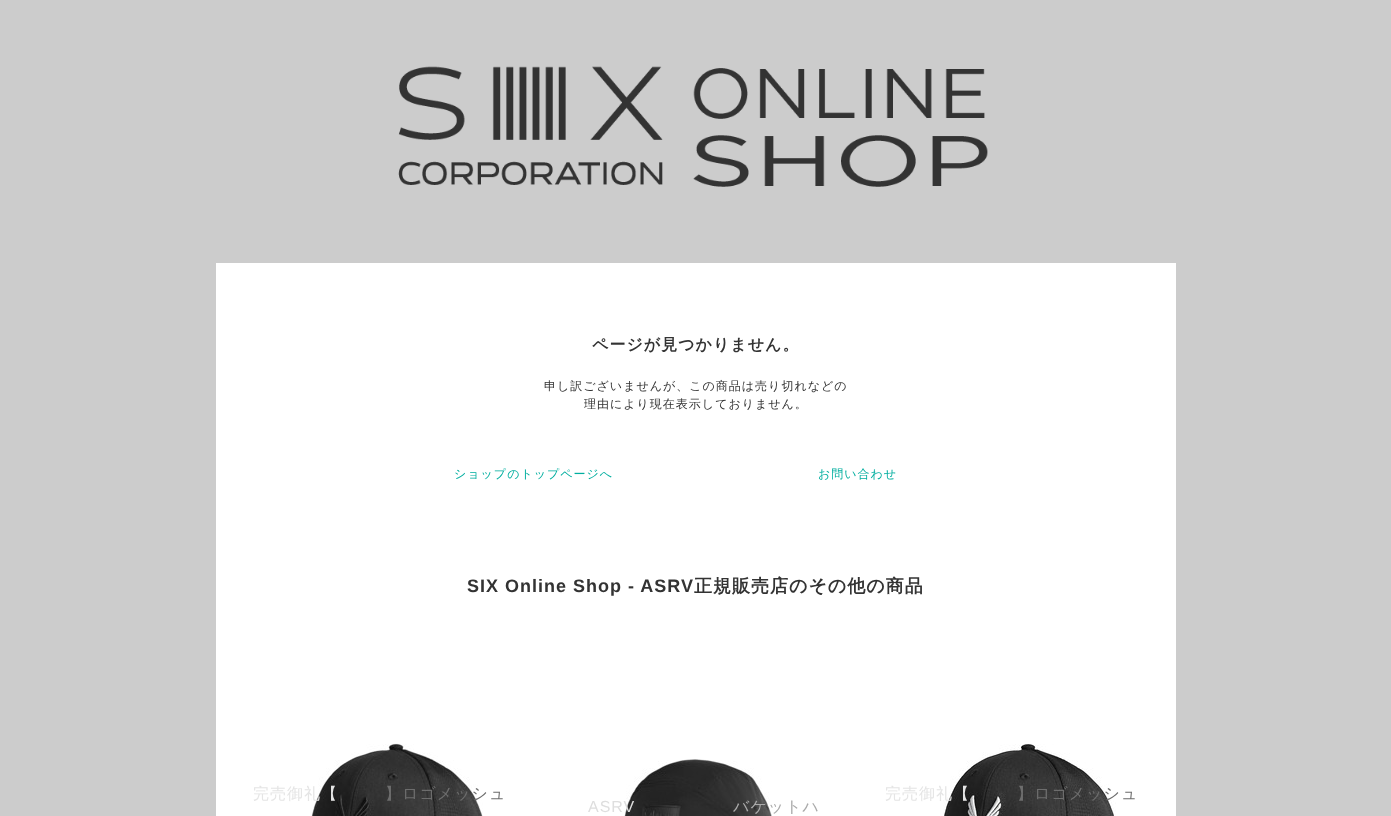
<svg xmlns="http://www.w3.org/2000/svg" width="1391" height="816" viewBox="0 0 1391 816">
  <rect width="100%" height="100%" fill="#ccc"/>
  <image x="398" y="66" width="590" height="121" href="img/1.png"/>
  <path d="M216 263h960v553H216z" fill="#fff"/>
  <image x="311" y="743" width="172" height="73" href="img/2.png"/>
  <image x="943" y="744" width="173" height="72" href="img/3.png"/>
  <image x="624" y="759" width="148" height="57" href="img/4.png"/>
  <text x="592" y="350" font-family="WenQuanYi Zen Hei" font-size="16" font-weight="bold" letter-spacing="1" fill="#333">ページが見つかりません。</text>
  <g font-family="WenQuanYi Zen Hei" font-size="12" font-weight="500" letter-spacing="1" fill="#333">
    <text x="544" y="390">申し訳ございませんが、この商品は売り切れなどの</text>
    <text x="584" y="408">理由により現在表示しておりません。</text>
  </g>
  <g font-family="WenQuanYi Zen Hei" font-size="12" font-weight="500" letter-spacing="1" fill="#00ae9f">
    <text x="454" y="478">ショップのトップページへ</text>
    <text x="818" y="478">お問い合わせ</text>
  </g>
  <text x="467" y="592" font-family="Liberation Sans" font-size="18" font-weight="bold" letter-spacing="1" fill="#333">SIX Online Shop - ASRV</text>
  <text x="694" y="592" font-family="WenQuanYi Zen Hei" font-size="18" font-weight="bold" letter-spacing="1" fill="#333">正規販売店のその他の商品</text>
  <text x="253" y="799" font-family="WenQuanYi Zen Hei" font-size="16" font-weight="500" letter-spacing="1" fill="#e5e5e5">完売御礼【</text>
  <text x="385" y="799" font-family="WenQuanYi Zen Hei" font-size="16" font-weight="500" letter-spacing="1" fill="#6d6d6d">】ロゴメッシュ</text>
  <text x="885" y="799" font-family="WenQuanYi Zen Hei" font-size="16" font-weight="500" letter-spacing="1" fill="#e5e5e5">完売御礼【</text>
  <text x="1017" y="799" font-family="WenQuanYi Zen Hei" font-size="16" font-weight="500" letter-spacing="1" fill="#6d6d6d">】ロゴメッシュ</text>
  <text x="588" y="812" font-family="Liberation Sans" font-size="16" letter-spacing="1" fill="#dedede">ASRV</text>
  <text x="733" y="812" font-family="WenQuanYi Zen Hei" font-size="16" font-weight="500" letter-spacing="1" fill="#aaa">バケットハ</text>
</svg>
